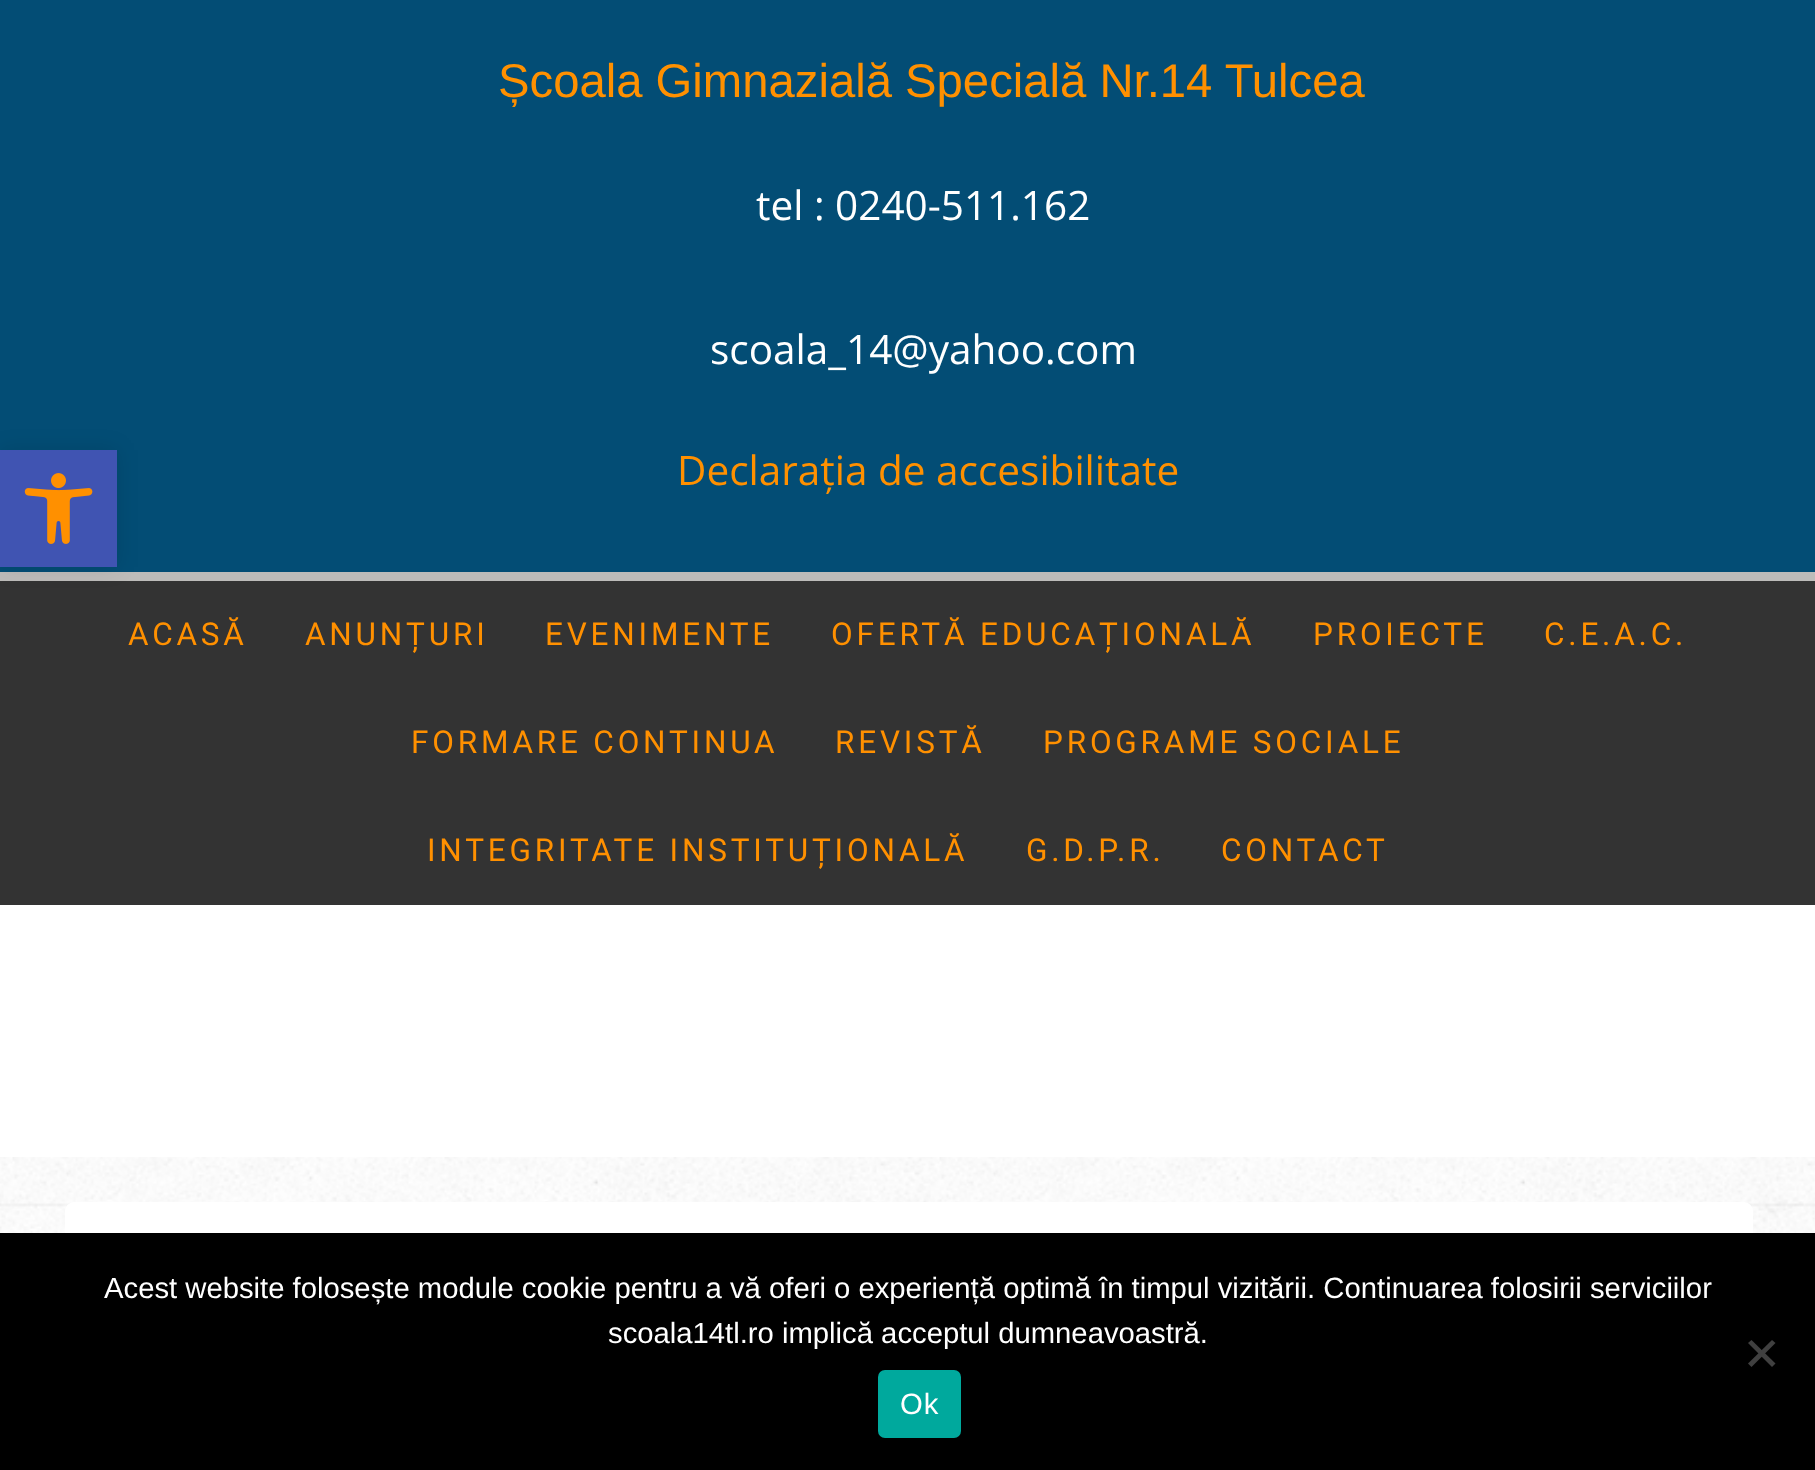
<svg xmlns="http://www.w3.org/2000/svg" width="1815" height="1470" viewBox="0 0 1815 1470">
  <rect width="100%" height="100%" fill="#fff"/>
  <image x="0" y="1157" width="1815" height="76" href="img/1.png"/>
  <path d="M0 0h1815v572H0z" fill="#034d75"/>
  <path d="M0 572h1815v9H0z" fill="#bdbcba"/>
  <path d="M0 581h1815v324H0z" fill="#333"/>
  <path d="M0 450h117v117H0z" fill="#0000001a" filter="blur(11px)"/>
  <path d="M0 450h117v117H0z" fill="#4054b2"/>
  <image x="24" y="473" width="69" height="71" href="img/2.png"/>
  <rect x="65" y="1202" width="1688" height="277" rx="9" fill="#fff"/>
  <path d="M0 1233h1815v237H0z" fill="#000"/>
  <path d="M1772 1340L1775.5 1343L1751.5 1367L1748 1363.5Z" fill="#404040"/>
  <path d="M1748 1343L1751.5 1340L1775.5 1363.5L1772 1367Z" fill="#404040"/>
  <rect x="878" y="1370" width="83" height="68" rx="7" fill="#00a99d"/>
  <text x="498" y="97" font-family="Liberation Sans" font-size="47.25" fill="#ff9000">Școala Gimnazială Specială Nr.14 Tulcea</text>
  <g font-family="Open Sans" font-size="40.5" fill="#fff">
    <text x="756" y="220">tel : 0240-511.162</text>
    <text x="710" y="364">scoala_14@yahoo.com</text>
  </g>
  <text x="677" y="485" font-family="Open Sans" font-size="40.5" fill="#ff9000">Declarația de accesibilitate</text>
  <g font-family="Roboto" font-size="31.5" letter-spacing="3.8" fill="#ff9000">
    <text x="128" y="645">ACASĂ</text>
    <text x="305" y="645">ANUNȚURI</text>
    <text x="545" y="645">EVENIMENTE</text>
    <text x="831" y="645">OFERTĂ EDUCAȚIONALĂ</text>
    <text x="1313" y="645">PROIECTE</text>
    <text x="1544" y="645">C.E.A.C.</text>
    <text x="411" y="753">FORMARE CONTINUA</text>
    <text x="835" y="753">REVISTĂ</text>
    <text x="1043" y="753">PROGRAME SOCIALE</text>
    <text x="427" y="861">INTEGRITATE INSTITUȚIONALĂ</text>
    <text x="1026" y="861">G.D.P.R.</text>
    <text x="1221" y="861">CONTACT</text>
  </g>
  <g font-family="Liberation Sans" font-size="29.25" fill="#fff">
    <text x="104" y="1298">Acest website folosește module cookie pentru a vă oferi o experiență optimă în timpul vizitării. Continuarea folosirii serviciilor</text>
    <text x="608" y="1343">scoala14tl.ro implică acceptul dumneavoastră.</text>
  </g>
  <text x="900" y="1414" font-family="Liberation Sans" font-size="29.25" letter-spacing="1" fill="#fff">Ok</text>
</svg>
